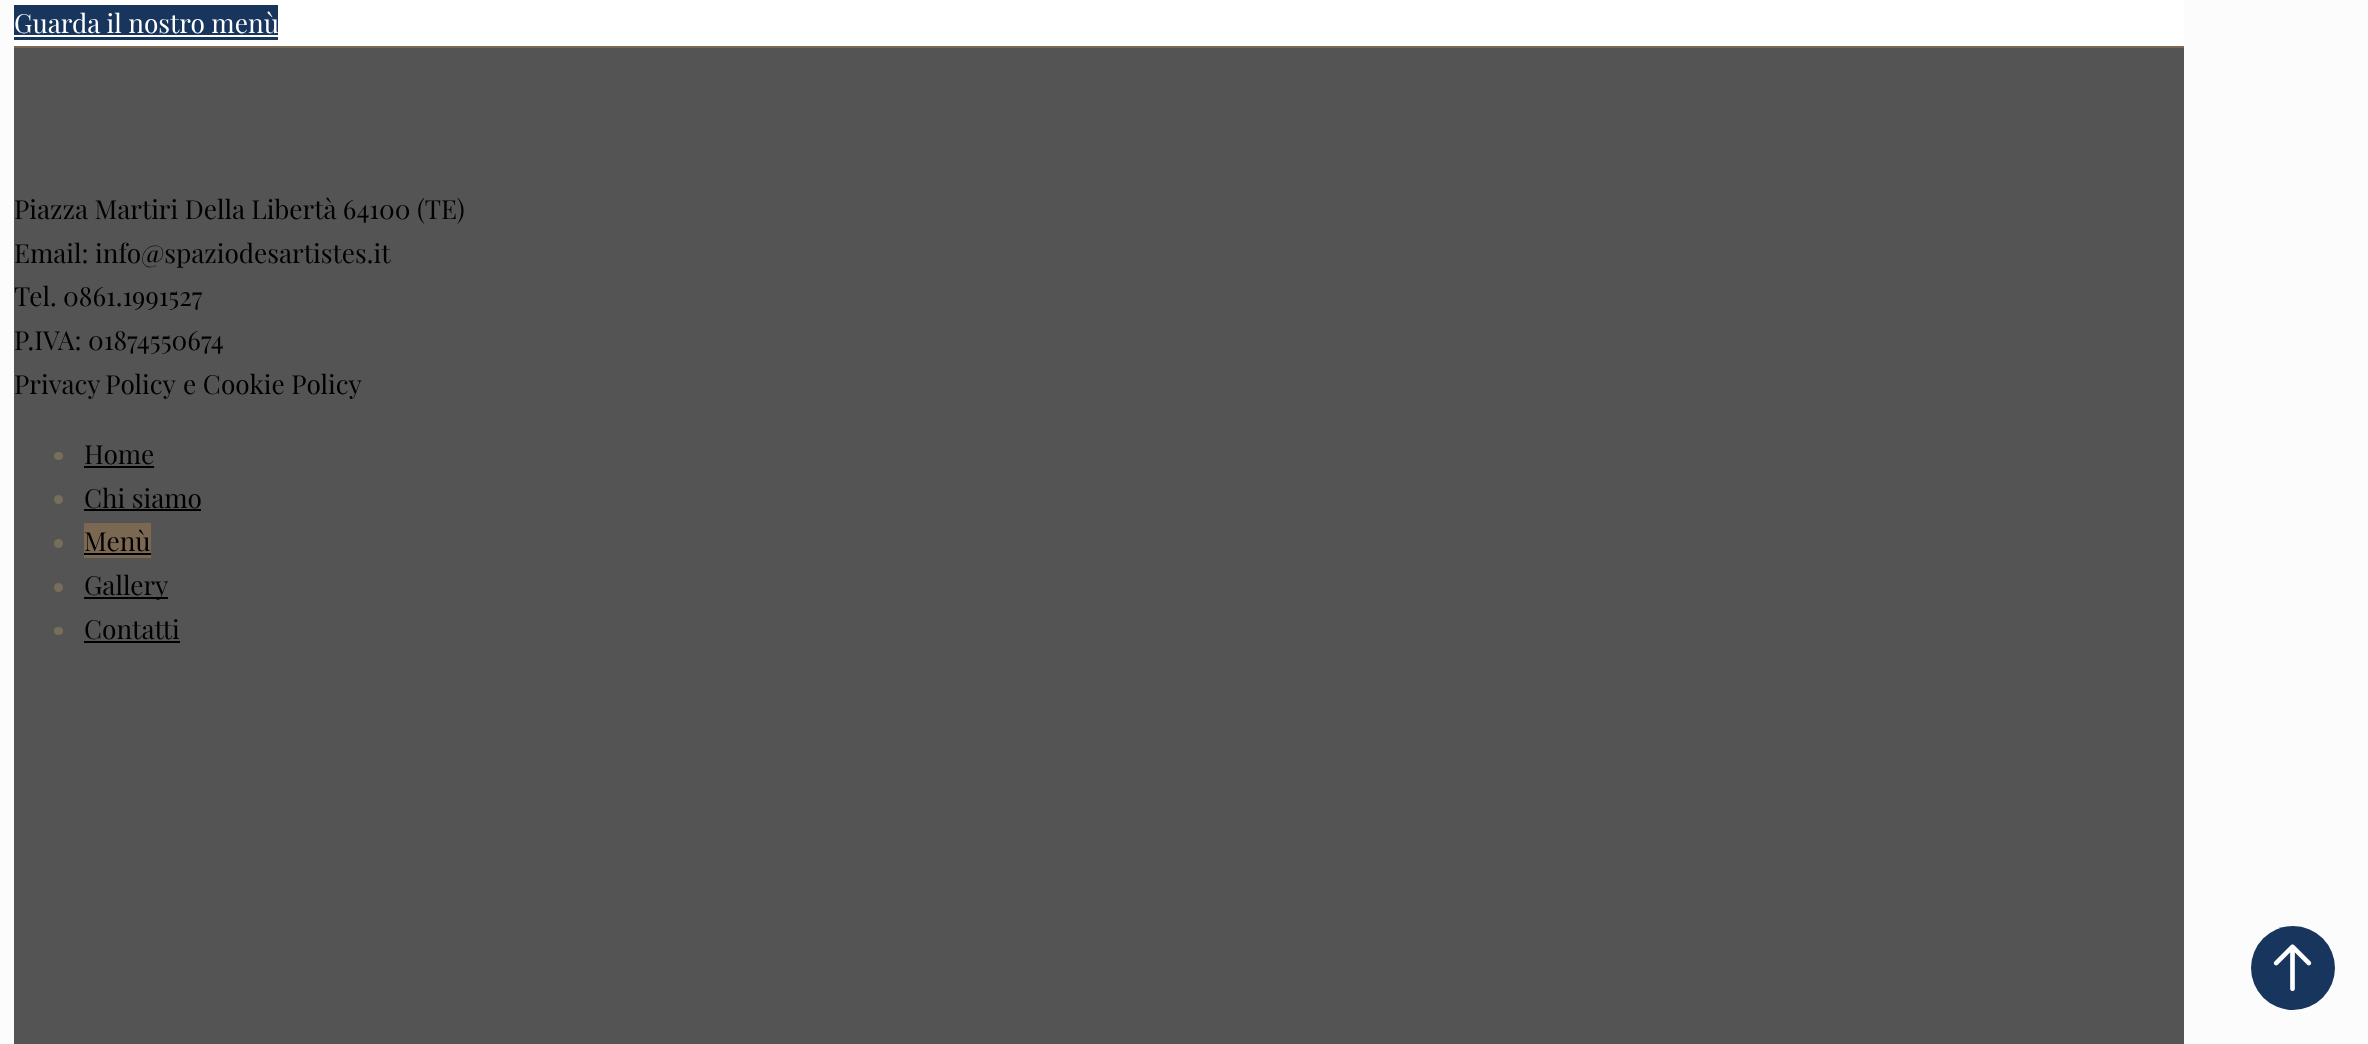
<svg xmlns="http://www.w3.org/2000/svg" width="2368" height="1044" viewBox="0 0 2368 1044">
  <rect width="100%" height="100%" fill="#fcfcfc"/>
  <path d="M14 0h2170v46H14z" fill="#fff"/>
  <path d="M14 5h264v35H14z" fill="#18355e"/>
  <path d="M14 35h264v2H14z" fill="#fff"/>
  <path d="M14 48h2170v996H14z" fill="#545454"/>
  <path d="M14 46h2170v2H14z" fill="#7b6852"/>
  <rect x="54" y="452" width="9" height="8" rx="4" fill="#766d5b"/>
  <path d="M84 466h70v2H84z" fill="#000"/>
  <circle cx="58.5" cy="499.5" r="4.5" fill="#766d5b"/>
  <path d="M84 509h117v2H84z" fill="#000"/>
  <circle cx="58.5" cy="543.5" r="4.5" fill="#766d5b"/>
  <path d="M84 523h67v35H84z" fill="#7b6852"/>
  <path d="M84 553h67v2H84z" fill="#000"/>
  <circle cx="58.5" cy="587.5" r="4.5" fill="#766d5b"/>
  <path d="M84 597h84v2H84z" fill="#000"/>
  <rect x="54" y="627" width="9" height="8" rx="4" fill="#766d5b"/>
  <path d="M84 641h96v2H84z" fill="#000"/>
  <circle cx="2293" cy="968" r="42" fill="#18355e"/>
  <image x="2273" y="944" width="39" height="48" href="img/1.png"/>
  <text x="14" y="33" font-family="Playfair Display" font-size="26.25" fill="#fff">Guarda il nostro menù</text>
  <g font-family="Playfair Display" font-size="26.25" fill="#000">
    <text x="14" y="219">Piazza Martiri Della Libertà 64100 (TE)</text>
    <text x="14" y="263">Email: info@spaziodesartistes.it</text>
    <text x="14" y="306">Tel. 0861.1991527</text>
    <text x="14" y="350">P.IVA: 01874550674</text>
    <text x="14" y="394" word-spacing="-1">Privacy Policy</text>
    <text x="183" y="394">e Cookie Policy</text>
    <text x="84" y="464">Home</text>
    <text x="84" y="508">Chi siamo</text>
    <text x="84" y="551">Menù</text>
    <text x="84" y="595">Gallery</text>
    <text x="84" y="639">Contatti</text>
  </g>
</svg>
